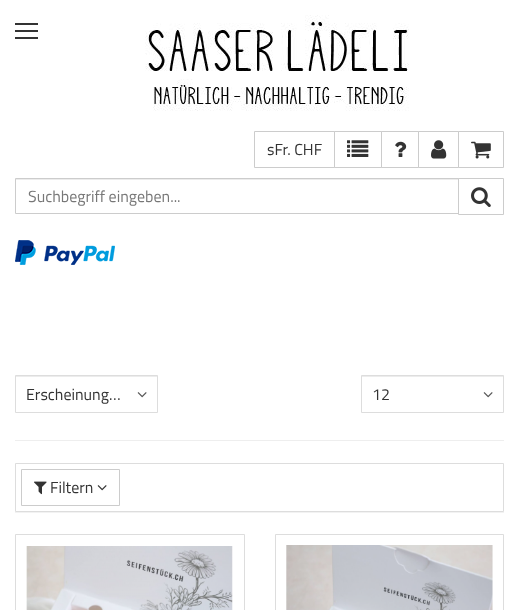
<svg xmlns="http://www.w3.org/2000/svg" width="519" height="610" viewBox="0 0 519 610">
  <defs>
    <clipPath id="clip1"><path d="M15 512h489v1H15z"/></clipPath>
  </defs>
  <rect width="100%" height="100%" fill="#fff"/>
  <path d="M15 30h23v2H15z" fill="#333"/>
  <path d="M15 23h23v2H15z" fill="#333"/>
  <path d="M15 37h23v2H15z" fill="#333"/>
  <image x="145" y="15" width="264" height="96" href="img/1.png"/>
  <path d="M254.5 131.5h80v36H254.5z" fill="none" stroke="#ccc"/>
  <path d="M334.5 131.5h47v36H334.5z" fill="none" stroke="#ccc"/>
  <image x="347" y="140" width="22" height="17" href="img/2.png"/>
  <path d="M381.5 131.5h37v36H381.5z" fill="none" stroke="#ccc"/>
  <image x="395" y="141" width="12" height="16" href="img/3.png"/>
  <path d="M418.5 131.5h40v36H418.5z" fill="none" stroke="#ccc"/>
  <image x="431" y="140" width="16" height="19" href="img/4.png"/>
  <path d="M458.5 131.5h45v36H458.5z" fill="none" stroke="#ccc"/>
  <image x="471" y="141" width="20" height="18" href="img/5.png"/>
  <path d="M16 179h442v1H16z" fill="#ececec"/>
  <path d="M15.5 178.5h443v35H15.5z" fill="none" stroke="#ccc"/>
  <path d="M458.5 178.5h45v36H458.5z" fill="none" stroke="#ccc"/>
  <image x="471" y="187" width="20" height="20" href="img/6.png"/>
  <image x="15" y="240" width="100" height="25" href="img/7.png"/>
  <path d="M15.5 375.5h142v37H15.5z" fill="none" stroke="#ddd"/>
  <path d="M16 376h141v1H16z" fill="#ececec"/>
  <image x="137" y="392" width="10" height="6" href="img/8.png"/>
  <path d="M361.5 375.5h142v37H361.5z" fill="none" stroke="#ddd"/>
  <path d="M362 376h141v1H362z" fill="#ececec"/>
  <image x="483" y="392" width="10" height="6" href="img/8.png"/>
  <path d="M15 440h489v1H15z" fill="#eee"/>
  <g clip-path="url(#clip1)">
    <path d="M15 464h489v49H15z" fill="#0000000d" filter="blur(0.5px)"/>
  </g>
  <path d="M15.5 463.5h488v48H15.5z" fill="none" stroke="#ddd"/>
  <path d="M21.5 469.5h98v36H21.5z" fill="none" stroke="#ccc"/>
  <image x="34" y="481" width="13" height="14" href="img/9.png"/>
  <image x="97" y="485" width="10" height="6" href="img/10.png"/>
  <path d="M15.5 534.5h229v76H15.5z" fill="none" stroke="#ddd"/>
  <image x="26" y="546" width="207" height="64" href="img/11.png"/>
  <path d="M275.5 534.5h228v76H275.5z" fill="none" stroke="#ddd"/>
  <image x="286" y="545" width="207" height="65" href="img/12.png"/>
  <text x="267" y="155" font-family="Titillium Web" font-size="16" fill="#333">sFr. CHF</text>
  <text x="28" y="202" font-family="Titillium Web" font-size="16" fill="#777">Suchbegriff eingeben...</text>
  <g font-family="Titillium Web" font-size="16" fill="#333">
    <text x="26" y="400">Erscheinung…</text>
    <text x="372" y="400">12</text>
    <text x="50" y="493">Filtern</text>
  </g>
</svg>
